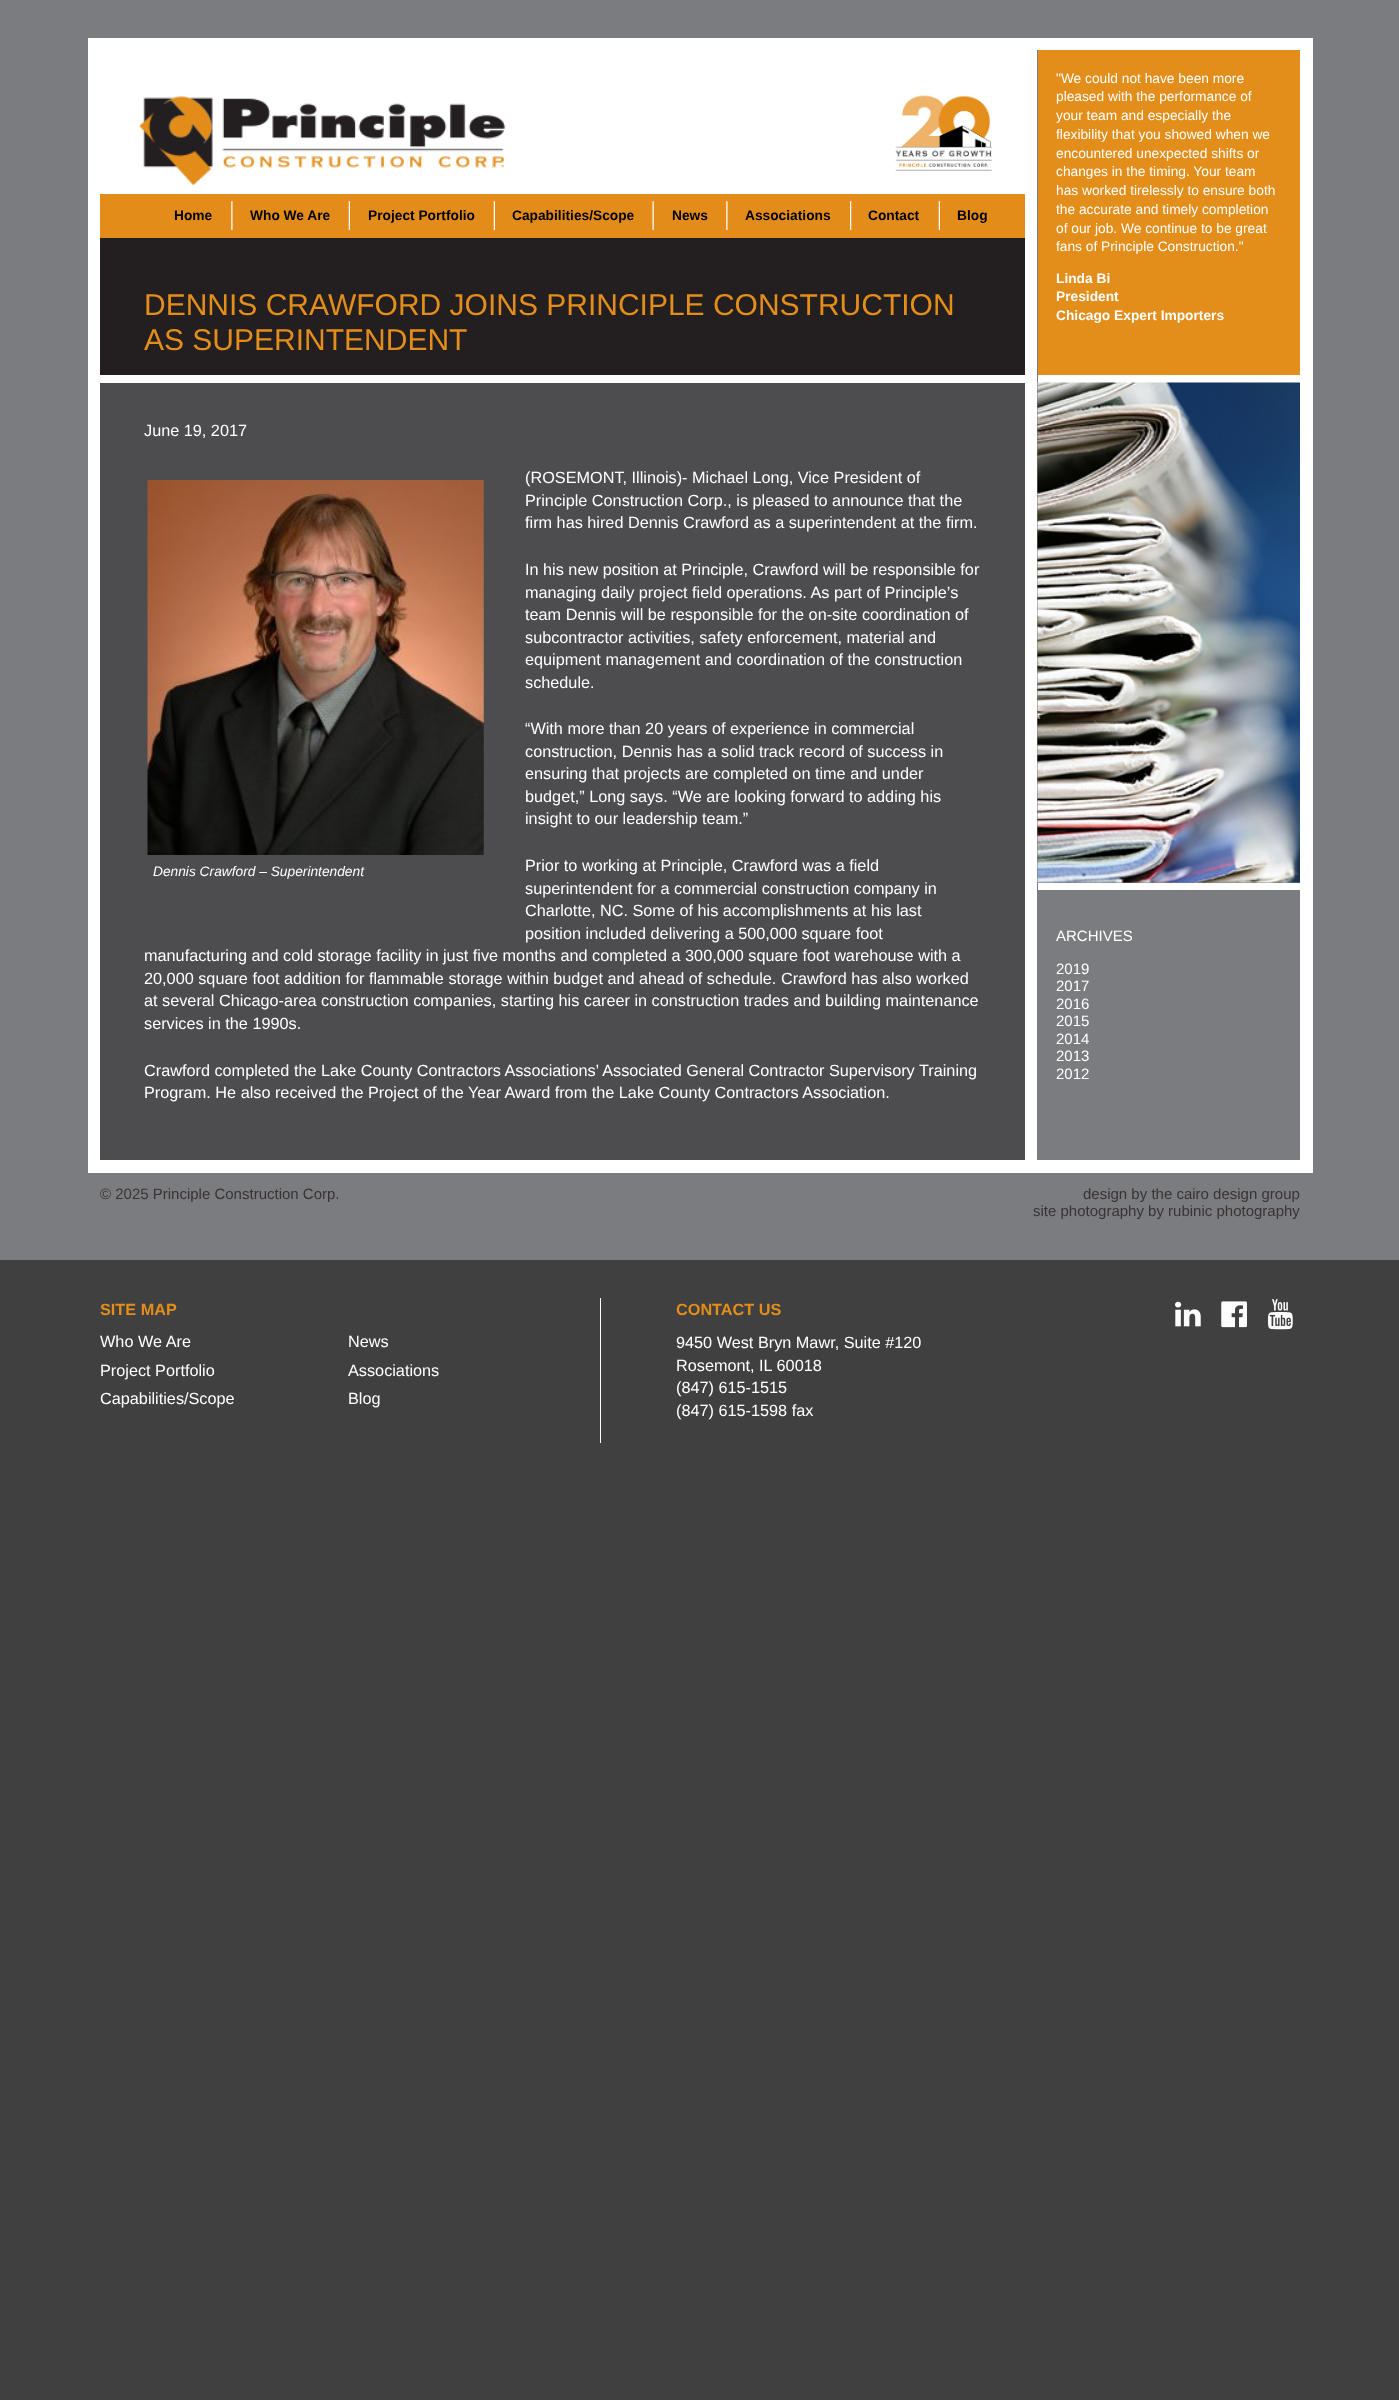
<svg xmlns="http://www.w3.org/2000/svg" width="1399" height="2400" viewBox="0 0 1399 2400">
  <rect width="100%" height="100%" fill="#404041"/>
  <path d="M0 0h1399v1260H0z" fill="#7a7c7f"/>
  <path d="M88 38h1225v1135H88z" fill="#fff"/>
  <path d="M1037 50h263v1110H1037z" fill="#7a7c7f"/>
  <image x="138" y="96" width="368" height="90" href="img/1.png"/>
  <image x="895" y="95" width="97" height="76" href="img/2.png"/>
  <path d="M100 194h925v44H100z" fill="#e38c1a"/>
  <image x="231" y="201" width="2" height="29" href="img/3.png"/>
  <image x="348" y="201" width="2" height="29" href="img/4.png"/>
  <image x="493" y="201" width="2" height="29" href="img/4.png"/>
  <image x="652" y="201" width="2" height="29" href="img/5.png"/>
  <image x="726" y="201" width="2" height="29" href="img/3.png"/>
  <image x="850" y="201" width="2" height="29" href="img/6.png"/>
  <image x="938" y="201" width="2" height="29" href="img/4.png"/>
  <path d="M100 238h925v137H100z" fill="#231f20"/>
  <path d="M100 383h925v777H100z" fill="#4d4d4f"/>
  <image x="147" y="480" width="337" height="375" href="img/7.png"/>
  <path d="M1038 50h262v325H1038z" fill="#e38d1a"/>
  <path d="M1038 375h262v8H1038z" fill="#fff"/>
  <image x="1037" y="382" width="263" height="501" href="img/8.png"/>
  <path d="M1038 883h262v7H1038z" fill="#fff"/>
  <path d="M600 1298h1v145H600z" fill="#fff"/>
  <image x="1175" y="1301" width="26" height="26" href="img/9.png"/>
  <image x="1221" y="1301" width="26" height="27" href="img/10.png"/>
  <image x="1267" y="1299" width="26" height="31" href="img/11.png"/>
  <g font-family="Liberation Sans" font-size="13.75" font-weight="bold" fill="#000">
    <text x="174" y="220">Home</text>
    <text x="250" y="220">Who We Are</text>
    <text x="368" y="220">Project Portfolio</text>
    <text x="512" y="220">Capabilities/Scope</text>
    <text x="672" y="220">News</text>
    <text x="745" y="220">Associations</text>
    <text x="868" y="220">Contact</text>
    <text x="957" y="220">Blog</text>
  </g>
  <g font-family="Liberation Sans" font-size="30" fill="#e38d1a">
    <text x="144" y="315">DENNIS CRAWFORD JOINS PRINCIPLE CONSTRUCTION</text>
    <text x="144" y="350">AS SUPERINTENDENT</text>
  </g>
  <g font-family="Liberation Sans" font-size="16.25" fill="#fff">
    <text x="144" y="436">June 19, 2017</text>
    <text x="525" y="483">(ROSEMONT, Illinois)- Michael Long, Vice President of</text>
    <text x="525" y="506">Principle Construction Corp., is pleased to announce that the</text>
    <text x="525" y="528">firm has hired Dennis Crawford as a superintendent at the firm.</text>
    <text x="525" y="575">In his new position at Principle, Crawford will be responsible for</text>
    <text x="525" y="598">managing daily project field operations. As part of Principle’s</text>
    <text x="525" y="620">team Dennis will be responsible for the on-site coordination of</text>
    <text x="525" y="643">subcontractor activities, safety enforcement, material and</text>
    <text x="525" y="665">equipment management and coordination of the construction</text>
    <text x="525" y="688">schedule.</text>
    <text x="525" y="734">“With more than 20 years of experience in commercial</text>
    <text x="525" y="757">construction, Dennis has a solid track record of success in</text>
    <text x="525" y="779">ensuring that projects are completed on time and under</text>
    <text x="525" y="802">budget,” Long says. “We are looking forward to adding his</text>
    <text x="525" y="824">insight to our leadership team.”</text>
    <text x="525" y="871">Prior to working at Principle, Crawford was a field</text>
    <text x="525" y="894">superintendent for a commercial construction company in</text>
    <text x="525" y="916">Charlotte, NC. Some of his accomplishments at his last</text>
    <text x="525" y="939">position included delivering a 500,000 square foot</text>
    <text x="144" y="961">manufacturing and cold storage facility in just five months and completed a 300,000 square foot warehouse with a</text>
    <text x="144" y="984">20,000 square foot addition for flammable storage within budget and ahead of schedule. Crawford has also worked</text>
    <text x="144" y="1006">at several Chicago-area construction companies, starting his career in construction trades and building maintenance</text>
    <text x="144" y="1029">services in the 1990s.</text>
  </g>
  <text x="153" y="876" font-family="Liberation Sans" font-size="13.75" font-style="italic" fill="#fff">Dennis Crawford – Superintendent</text>
  <g font-family="Liberation Sans" font-size="16.25" fill="#fff">
    <text x="144" y="1076">Crawford completed the Lake County Contractors Associations’ Associated General Contractor Supervisory Training</text>
    <text x="144" y="1098">Program. He also received the Project of the Year Award from the Lake County Contractors Association.</text>
  </g>
  <g font-family="Liberation Sans" font-size="13.75" fill="#fff">
    <text x="1056" y="83">"We could not have been more</text>
    <text x="1056" y="101">pleased with the performance of</text>
    <text x="1056" y="120">your team and especially the</text>
    <text x="1056" y="139">flexibility that you showed when we</text>
    <text x="1056" y="158">encountered unexpected shifts or</text>
    <text x="1056" y="176">changes in the timing. Your team</text>
    <text x="1056" y="195">has worked tirelessly to ensure both</text>
    <text x="1056" y="214">the accurate and timely completion</text>
    <text x="1056" y="233">of our job. We continue to be great</text>
    <text x="1056" y="251">fans of Principle Construction."</text>
  </g>
  <g font-family="Liberation Sans" font-size="13.75" font-weight="bold" fill="#fff">
    <text x="1056" y="283">Linda Bi</text>
    <text x="1056" y="301">President</text>
    <text x="1056" y="320">Chicago Expert Importers</text>
  </g>
  <g font-family="Liberation Sans" font-size="15" fill="#fff">
    <text x="1056" y="941">ARCHIVES</text>
    <text x="1056" y="974">2019</text>
    <text x="1056" y="991">2017</text>
    <text x="1056" y="1009">2016</text>
    <text x="1056" y="1026">2015</text>
    <text x="1056" y="1044">2014</text>
    <text x="1056" y="1061">2013</text>
    <text x="1056" y="1079">2012</text>
  </g>
  <g font-family="Liberation Sans" font-size="15" fill="#3b3333">
    <text x="100" y="1199">© 2025 Principle Construction Corp.</text>
    <text x="1083" y="1199">design by the cairo design group</text>
    <text x="1033" y="1216">site photography by rubinic photography</text>
  </g>
  <text x="100" y="1315" font-family="Liberation Sans" font-size="16.25" font-weight="bold" fill="#e38d1a">SITE MAP</text>
  <g font-family="Liberation Sans" font-size="16.25" fill="#fff">
    <text x="100" y="1347">Who We Are</text>
    <text x="100" y="1376">Project Portfolio</text>
    <text x="100" y="1404">Capabilities/Scope</text>
    <text x="348" y="1347">News</text>
    <text x="348" y="1376">Associations</text>
    <text x="348" y="1404">Blog</text>
  </g>
  <text x="676" y="1315" font-family="Liberation Sans" font-size="16.25" font-weight="bold" fill="#e38d1a">CONTACT US</text>
  <g font-family="Liberation Sans" font-size="16.25" fill="#fff">
    <text x="676" y="1348">9450 West Bryn Mawr, Suite #120</text>
    <text x="676" y="1371">Rosemont, IL 60018</text>
    <text x="676" y="1393">(847) 615-1515</text>
    <text x="676" y="1416">(847) 615-1598 fax</text>
  </g>
</svg>
